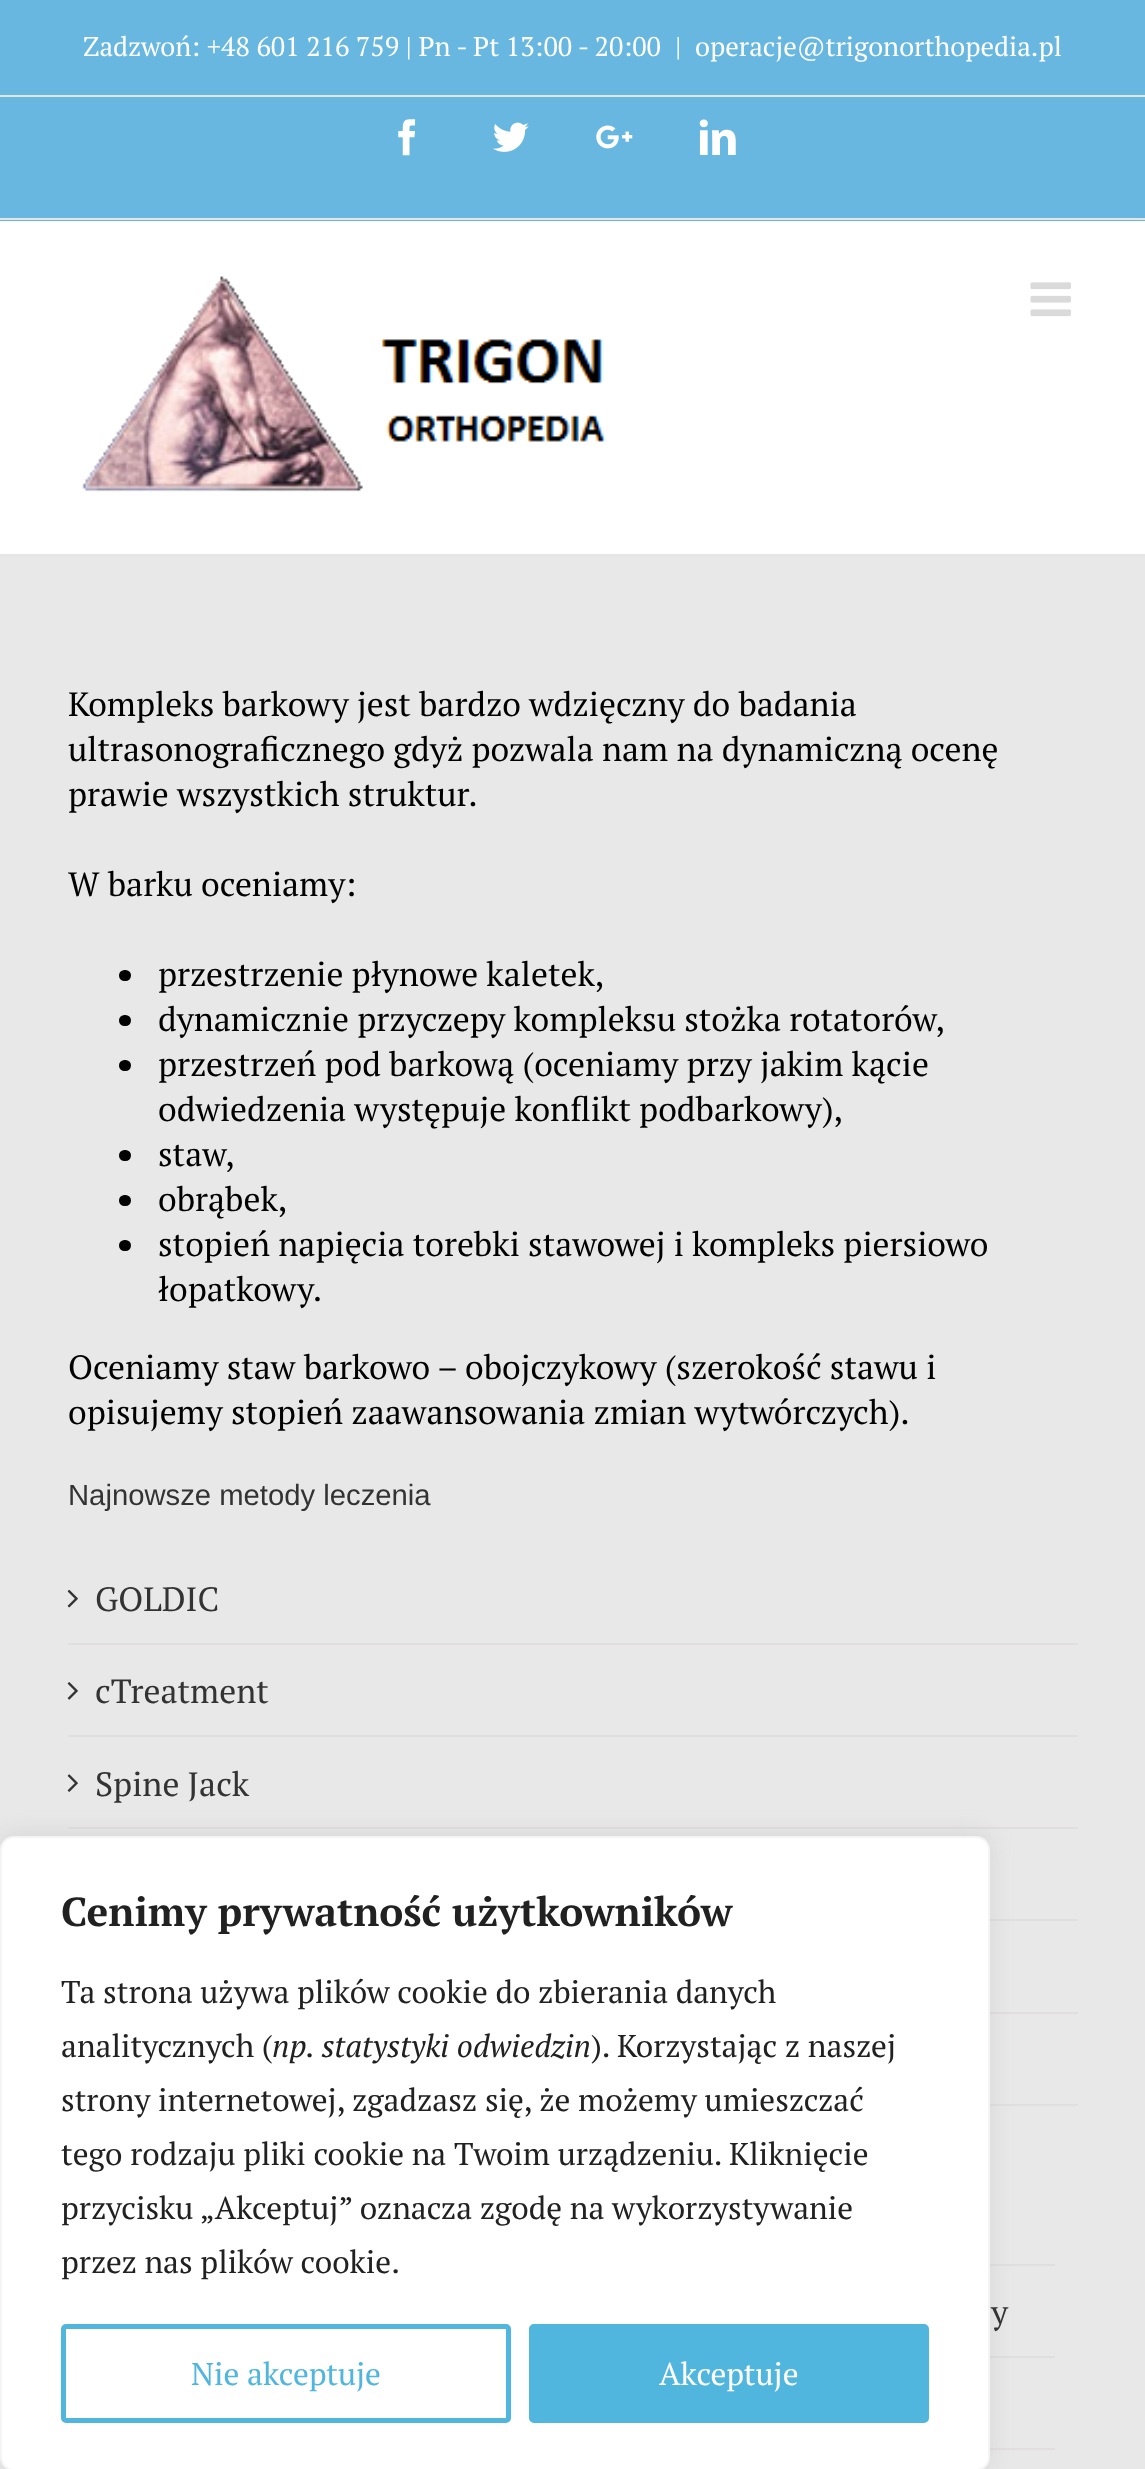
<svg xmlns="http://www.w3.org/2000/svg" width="1145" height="2469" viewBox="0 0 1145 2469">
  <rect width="100%" height="100%" fill="#e8e8e8"/>
  <path d="M0 0h1145v221H0z" fill="#67b7e1"/>
  <path d="M0 218h1145v2H0z" fill="#e5e5e5"/>
  <path d="M0 95h1145v2H0z" fill="#e5e5e5"/>
  <image x="398" y="119" width="18" height="37" href="img/1.png"/>
  <image x="493" y="122" width="36" height="30" href="img/2.png"/>
  <image x="596" y="125" width="37" height="24" href="img/3.png"/>
  <image x="699" y="119" width="37" height="36" href="img/4.png"/>
  <path d="M0 221h1145v333H0z" fill="#fff"/>
  <path d="M0 554h1145v2H0z" fill="#e5e5e5"/>
  <image x="82" y="276" width="524" height="216" href="img/5.png"/>
  <image x="1030" y="282" width="41" height="35" href="img/6.png"/>
  <rect x="119" y="970" width="12" height="11" rx="5.5" fill="#000"/>
  <rect x="119" y="1015" width="12" height="11" rx="5.5" fill="#000"/>
  <rect x="119" y="1060" width="12" height="11" rx="5.5" fill="#000"/>
  <rect x="119" y="1150" width="12" height="11" rx="5.5" fill="#000"/>
  <rect x="119" y="1195" width="12" height="11" rx="5.5" fill="#000"/>
  <rect x="119" y="1240" width="12" height="11" rx="5.5" fill="#000"/>
  <path d="M68 1643h1010v2H68z" fill="#e0dede"/>
  <image x="67" y="1589" width="11" height="19" href="img/7.png"/>
  <path d="M68 1735h1010v2H68z" fill="#e0dede"/>
  <image x="67" y="1682" width="11" height="18" href="img/8.png"/>
  <path d="M68 1827h1010v2H68z" fill="#e0dede"/>
  <image x="67" y="1774" width="11" height="18" href="img/9.png"/>
  <path d="M990 1919h88v2H990z" fill="#e0dede"/>
  <path d="M990 2012h88v2H990z" fill="#e0dede"/>
  <path d="M990 2104h88v2H990z" fill="#e0dede"/>
  <path d="M990 2264h65v2H990z" fill="#e0dede"/>
  <path d="M990 2356h65v2H990z" fill="#e0dede"/>
  <path d="M990 2448h65v2H990z" fill="#e0dede"/>
  <rect y="1834" width="990" height="634" rx="14" fill="#acabab4d" filter="blur(11px)"/>
  <rect x="1" y="1837" width="988" height="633" rx="13" fill="#fff" stroke="#f4f4f4" stroke-width="2"/>
  <rect x="63.5" y="2326.5" width="445" height="94" rx="2.5" fill="none" stroke="#51b6de" stroke-width="5"/>
  <rect x="531.5" y="2326.5" width="395" height="94" rx="2.5" fill="#51b6de" stroke="#51b6de" stroke-width="5"/>
  <g font-family="PT Serif" font-size="27" fill="#fff">
    <text x="83" y="56">Zadzwoń: +48 601 216 759 | Pn - Pt 13:00 - 20:00</text>
    <text x="675" y="56">|</text>
    <text x="695" y="56">operacje@trigonorthopedia.pl</text>
  </g>
  <g font-family="PT Serif" font-size="33.75" fill="#000">
    <text x="68" y="716">Kompleks barkowy jest bardzo wdzięczny do badania</text>
    <text x="68" y="761">ultrasonograficznego gdyż pozwala nam na dynamiczną ocenę</text>
    <text x="68" y="806">prawie wszystkich struktur.</text>
    <text x="68" y="896">W barku oceniamy:</text>
    <text x="158" y="986">przestrzenie płynowe kaletek,</text>
    <text x="158" y="1031">dynamicznie przyczepy kompleksu stożka rotatorów,</text>
    <text x="158" y="1076">przestrzeń pod barkową (oceniamy przy jakim kącie</text>
    <text x="158" y="1121">odwiedzenia występuje konflikt podbarkowy),</text>
    <text x="158" y="1166">staw,</text>
    <text x="158" y="1211">obrąbek,</text>
    <text x="158" y="1256">stopień napięcia torebki stawowej i kompleks piersiowo</text>
    <text x="158" y="1301">łopatkowy.</text>
    <text x="68" y="1379">Oceniamy staw barkowo – obojczykowy (szerokość stawu i</text>
    <text x="68" y="1424">opisujemy stopień zaawansowania zmian wytwórczych).</text>
  </g>
  <text x="68" y="1505" font-family="Liberation Sans" font-size="29.25" fill="#333">Najnowsze metody leczenia</text>
  <g font-family="PT Serif" font-size="33.75" fill="#333">
    <text x="95" y="1611">GOLDIC</text>
    <text x="95" y="1703">cTreatment</text>
    <text x="95" y="1796">Spine Jack</text>
    <text x="991" y="2324">y</text>
  </g>
  <text x="61" y="1926" font-family="PT Serif" font-size="40.5" font-weight="bold" fill="#212121">Cenimy prywatność użytkowników</text>
  <g font-family="PT Serif" font-size="31.5" fill="#212121">
    <text x="61" y="2003">Ta strona używa plików cookie do zbierania danych</text>
    <text x="61" y="2057">analitycznych (</text>
  </g>
  <text x="272" y="2057" font-family="PT Serif" font-size="31.5" font-style="italic" fill="#212121">np. statystyki odwiedzin</text>
  <g font-family="PT Serif" font-size="31.5" fill="#212121">
    <text x="591" y="2057">). Korzystając z naszej</text>
    <text x="61" y="2111">strony internetowej, zgadzasz się, że możemy umieszczać</text>
    <text x="61" y="2165">tego rodzaju pliki cookie na Twoim urządzeniu. Kliknięcie</text>
    <text x="61" y="2219">przycisku „Akceptuj” oznacza zgodę na wykorzystywanie</text>
    <text x="61" y="2273">przez nas plików cookie.</text>
  </g>
  <text x="191" y="2385" font-family="PT Serif" font-size="31.5" fill="#51b6de">Nie akceptuje</text>
  <text x="659" y="2385" font-family="PT Serif" font-size="31.5" fill="#fff">Akceptuje</text>
</svg>
